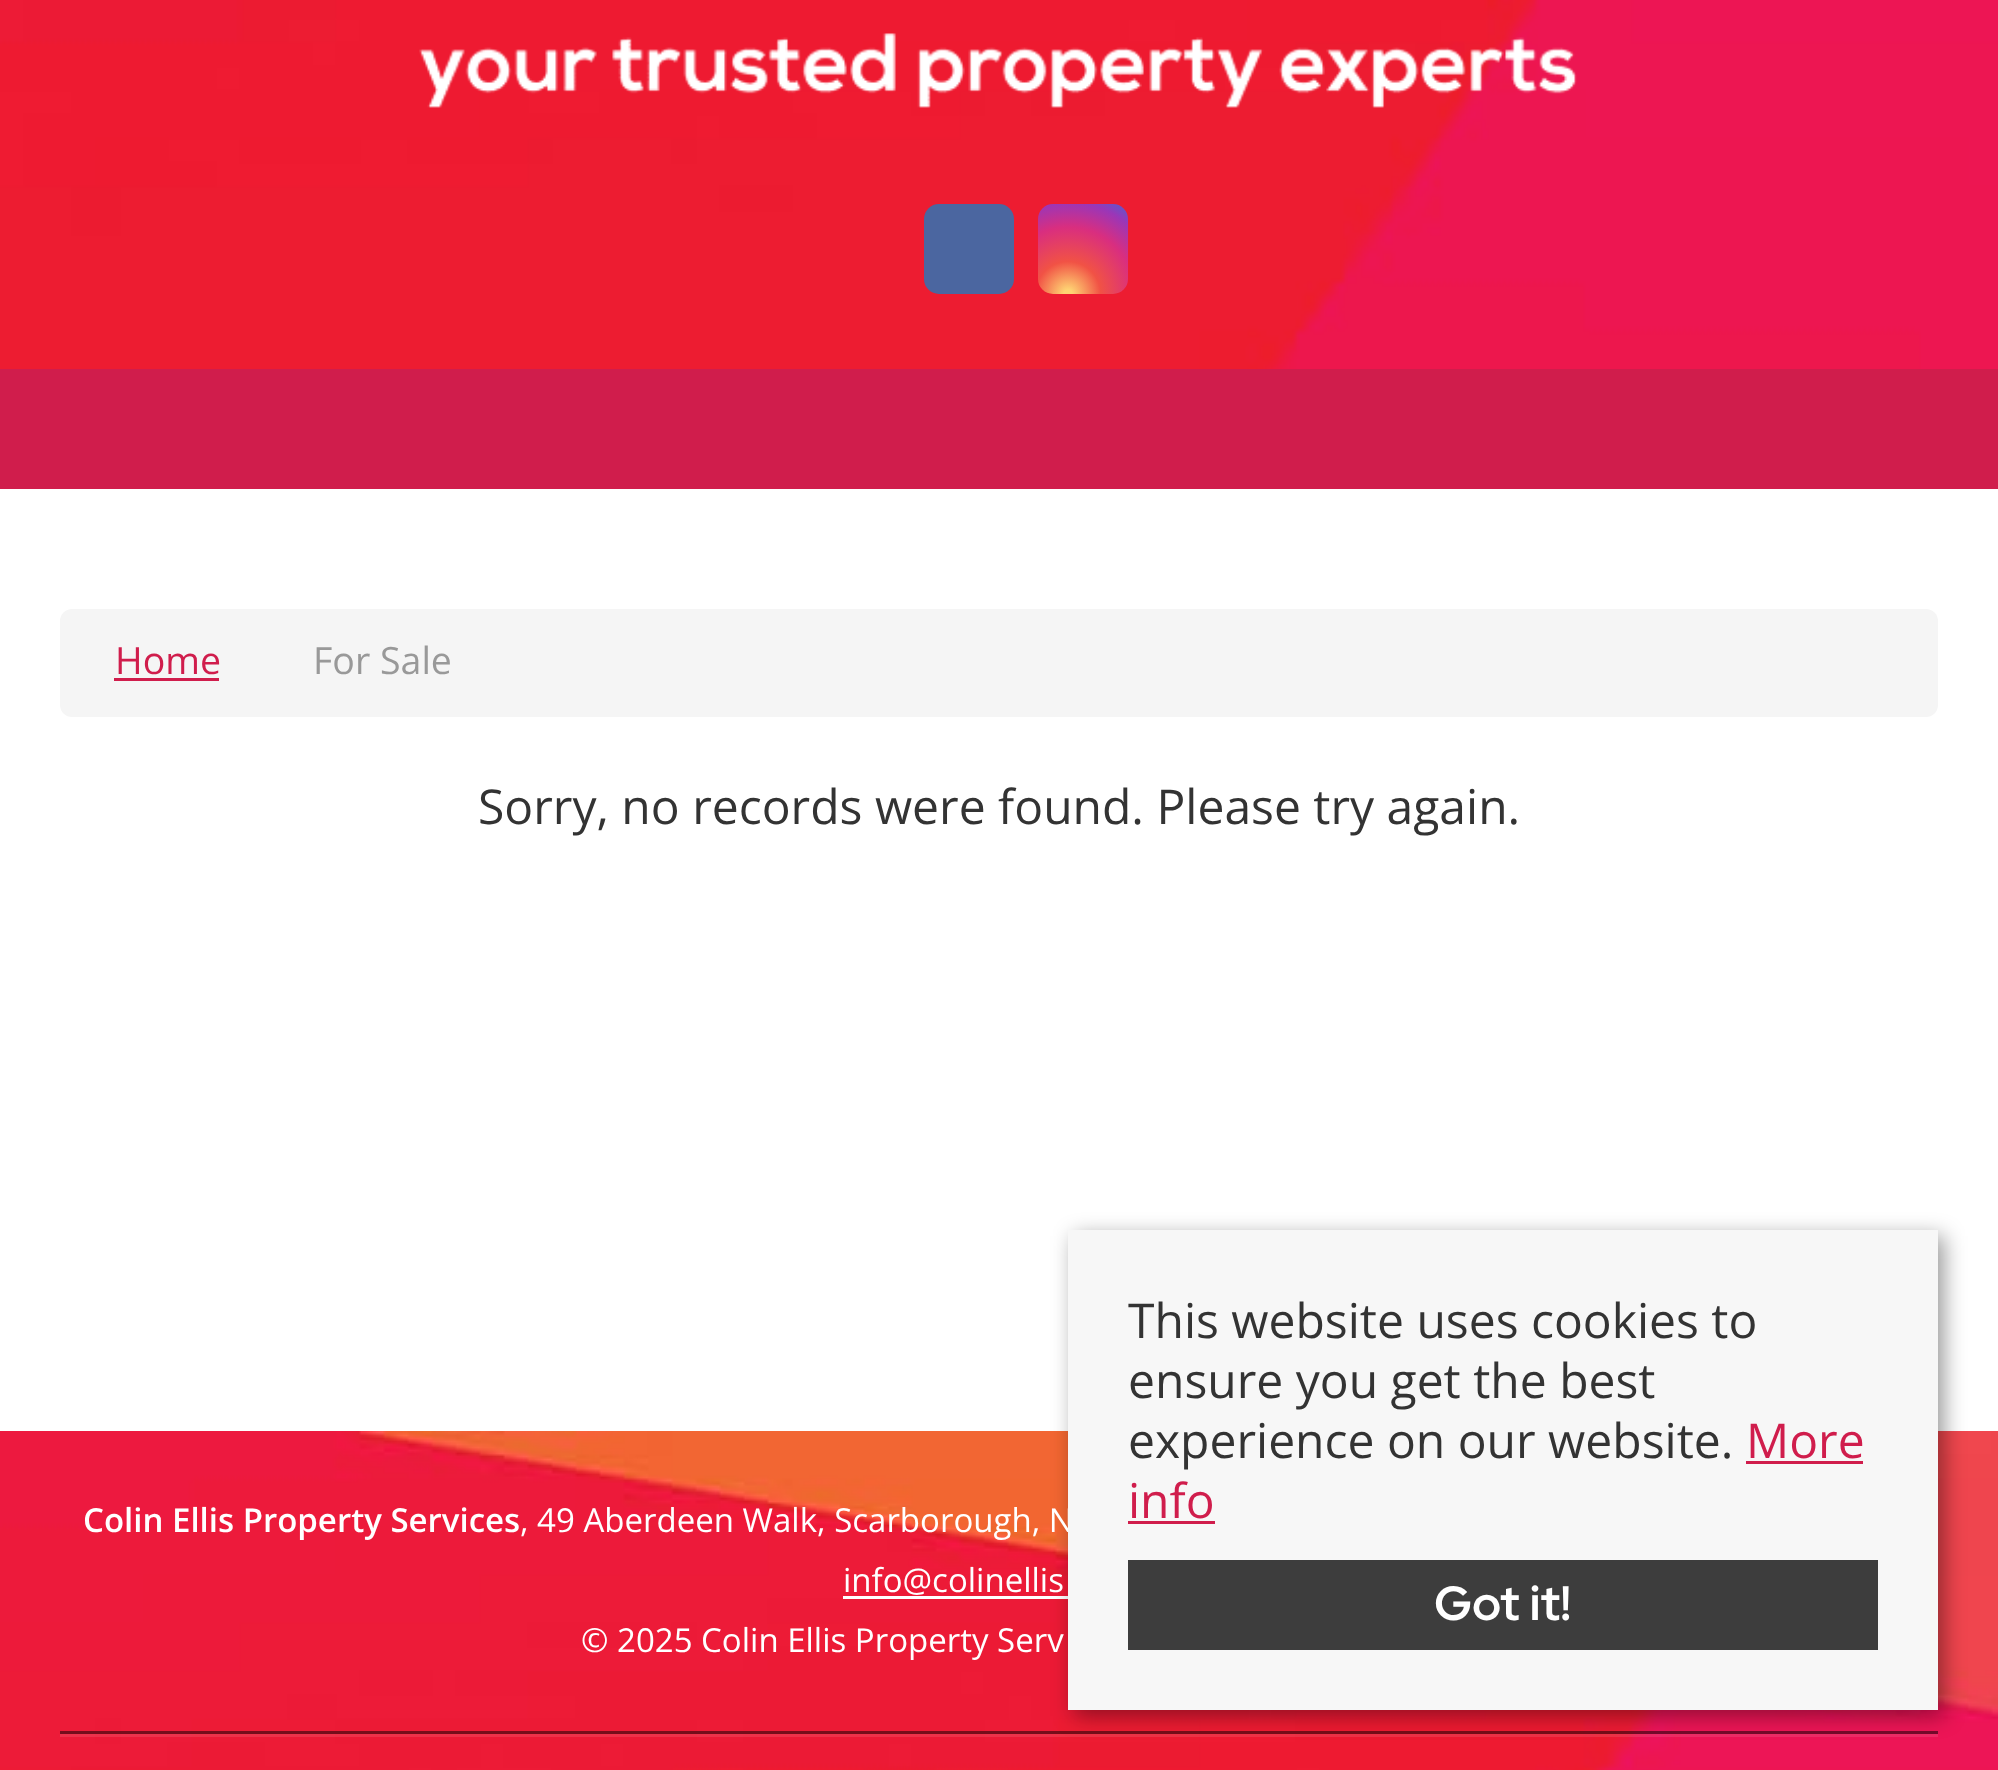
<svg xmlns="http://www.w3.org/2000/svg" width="1998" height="1770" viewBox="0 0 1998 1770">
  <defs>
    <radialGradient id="g1" gradientUnits="userSpaceOnUse" cx="1068" cy="294" r="108"><stop offset="0.04" stop-color="#fed373"/><stop offset="0.3" stop-color="#f15245"/><stop offset="0.62" stop-color="#d92e7f"/><stop offset="0.85" stop-color="#9b36b7"/><stop offset="1" stop-color="#515ecf"/></radialGradient>
  </defs>
  <rect width="100%" height="100%" fill="#fff"/>
  <image x="0" y="0" width="1998" height="369" href="img/1.png"/>
  <image x="419" y="33" width="1158" height="75" href="img/2.png"/>
  <rect x="924" y="204" width="90" height="90" rx="15" fill="#4b66a0"/>
  <rect x="1038" y="204" width="90" height="90" rx="15" fill="url(#g1)"/>
  <path d="M0 369h1998v120H0z" fill="#d01d4c"/>
  <rect x="60" y="609" width="1878" height="108" rx="12" fill="#f5f5f5"/>
  <path d="M114 678h105v3H114z" fill="#d01d4c"/>
  <image x="0" y="1431" width="1998" height="339" href="img/3.png"/>
  <path d="M843 1596h225v3H843z" fill="#fff"/>
  <path d="M60 1731h1878v3H60z" fill="#00000080"/>
  <path d="M60 1734h1878v3H60z" fill="#ffffff1a"/>
  <path d="M1074 1236h870v480H1074z" fill="#00000066" filter="blur(10.5px)"/>
  <text x="115" y="674" font-family="Open Sans" font-size="37.5" fill="#d01d4c">Home</text>
  <text x="313" y="674" font-family="Open Sans" font-size="37.5" fill="#999">For Sale</text>
  <text x="478" y="824" font-family="Open Sans" font-size="48" fill="#333">Sorry, no records were found. Please try again.</text>
  <text x="83" y="1532" font-family="Open Sans" font-size="33" font-weight="600" fill="#fff">Colin Ellis Property Services</text>
  <g font-family="Open Sans" font-size="33" fill="#fff">
    <text x="520" y="1532">, 49 Aberdeen Walk, Scarborough, N</text>
    <text x="843" y="1592">info@colinellis</text>
    <text x="581" y="1652">© 2025 Colin Ellis Property Serv</text>
  </g>
  <path d="M1068 1230h870v480H1068z" fill="#f7f7f7"/>
  <g font-family="Open Sans" font-size="48" fill="#333">
    <text x="1128" y="1338">This website uses cookies to</text>
    <text x="1128" y="1398">ensure you get the best</text>
    <text x="1128" y="1458">experience on our website.</text>
  </g>
  <text x="1746" y="1458" font-family="Open Sans" font-size="48" fill="#d01d4c">More</text>
  <path d="M1746 1461h117v3H1746z" fill="#d01d4c"/>
  <text x="1128" y="1518" font-family="Open Sans" font-size="48" fill="#d01d4c">info</text>
  <path d="M1128 1521h87v3H1128z" fill="#d01d4c"/>
  <path d="M1128 1560h750v90H1128z" fill="#3d3d3d"/>
  <text x="1434" y="1620" font-family="Red Hat Display" font-size="48" font-weight="bold" fill="#fff">Got it!</text>
</svg>
